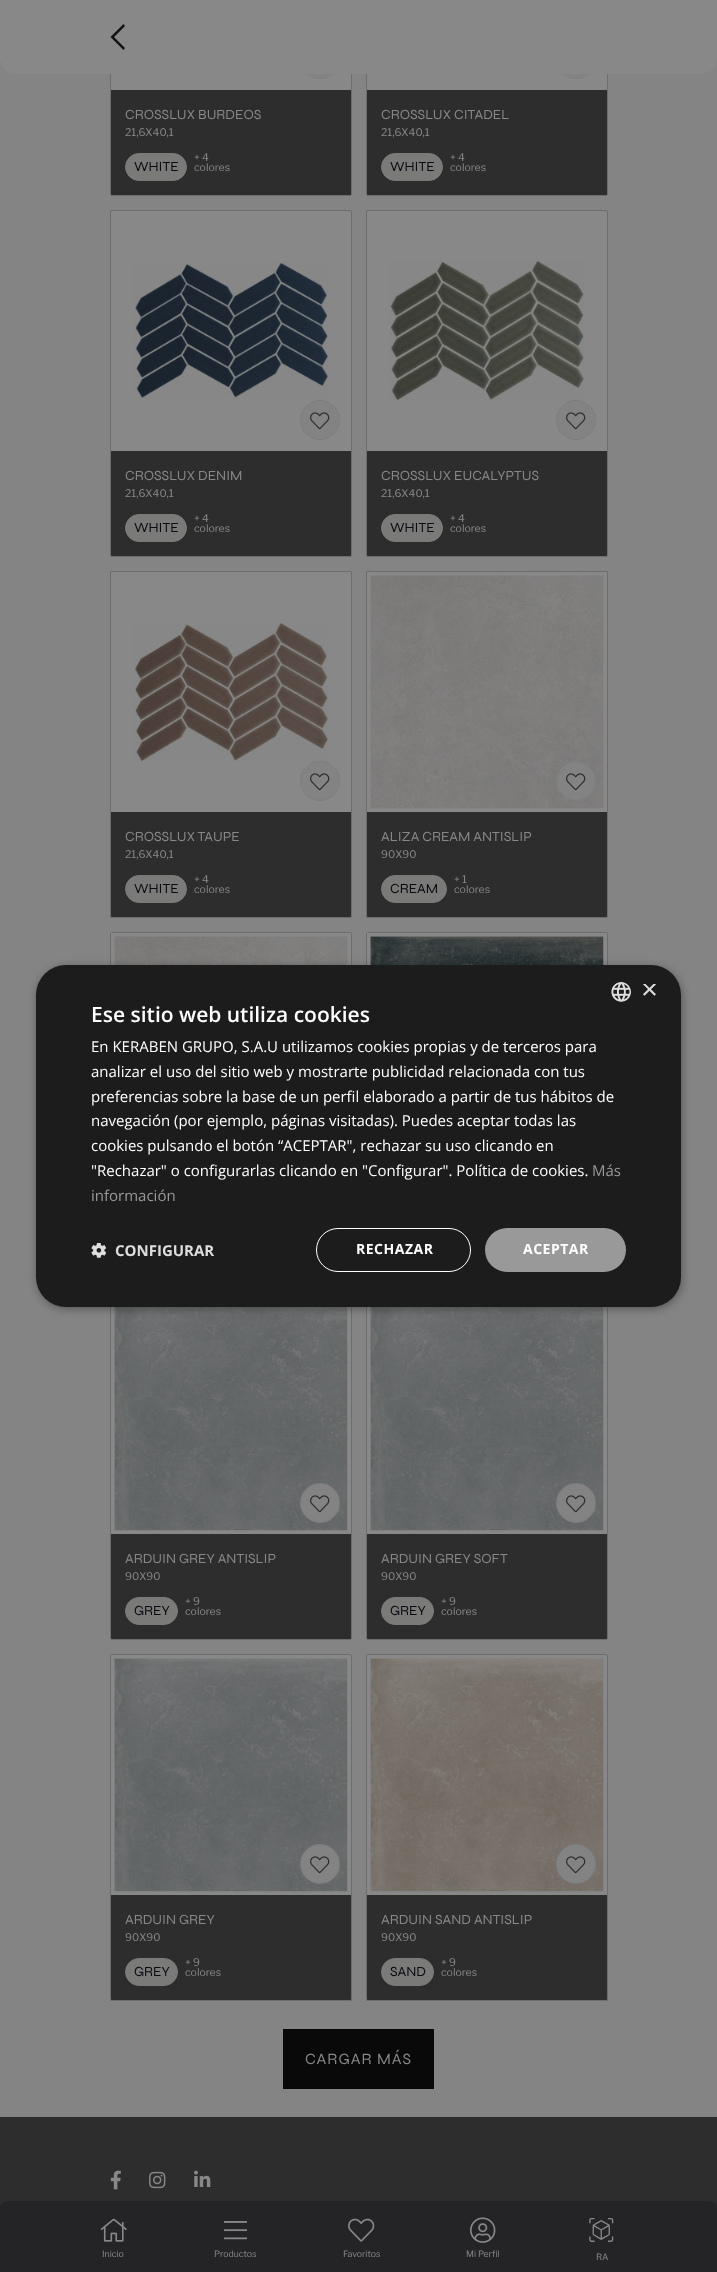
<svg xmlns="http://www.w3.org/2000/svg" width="717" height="2272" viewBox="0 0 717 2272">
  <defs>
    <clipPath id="clip1"><path d="M641 984h15v15H641z"/></clipPath>
  </defs>
  <rect width="100%" height="100%" fill="#848484"/>
  <rect x="110.5" y="-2.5" width="241" height="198" rx="1.5" fill="#2d2d2d" stroke="#6d6d6d"/>
  <image x="111" y="74" width="240" height="16" href="img/1.png"/>
  <circle cx="320" cy="59" r="19.5" fill="#838383" stroke="#7c7e7f"/>
  <rect x="366.5" y="-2.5" width="241" height="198" rx="1.5" fill="#2d2d2d" stroke="#6d6d6d"/>
  <image x="367" y="74" width="240" height="16" href="img/1.png"/>
  <circle cx="576" cy="59" r="19.5" fill="#838383" stroke="#7c7e7f"/>
  <path d="M0 0H717V58C717 67 710 74 701 74H16C7 74 0 67 0 58Z" fill="#888"/>
  <path d="M123.5 50L110.5 37L123.5 24L125 26L114 37L125 48Z" fill="#121212"/>
  <rect x="125.5" y="153.5" width="61" height="27" rx="13.5" fill="#7a7a79" stroke="#7a7a79"/>
  <rect x="381.5" y="153.5" width="61" height="27" rx="13.5" fill="#7a7a79" stroke="#7a7a79"/>
  <rect x="110.5" y="210.5" width="241" height="346" rx="1.5" fill="#2d2d2d" stroke="#6d6d6d"/>
  <image x="111" y="211" width="240" height="240" href="img/2.png"/>
  <circle cx="320" cy="420" r="19.5" fill="#838383" stroke="#7c7e7f"/>
  <image x="310" y="412" width="20" height="18" href="img/3.png"/>
  <rect x="125.5" y="514.5" width="61" height="27" rx="13.5" fill="#7a7a79" stroke="#7a7a79"/>
  <rect x="366.5" y="210.5" width="241" height="346" rx="1.5" fill="#2d2d2d" stroke="#6d6d6d"/>
  <image x="367" y="211" width="240" height="240" href="img/4.png"/>
  <circle cx="576" cy="420" r="19.5" fill="#838383" stroke="#7c7e7f"/>
  <image x="566" y="412" width="20" height="18" href="img/3.png"/>
  <rect x="381.5" y="514.5" width="61" height="27" rx="13.5" fill="#7a7a79" stroke="#7a7a79"/>
  <rect x="110.5" y="571.5" width="241" height="346" rx="1.5" fill="#2d2d2d" stroke="#6d6d6d"/>
  <image x="111" y="572" width="240" height="240" href="img/5.png"/>
  <circle cx="320" cy="781" r="19.5" fill="#838383" stroke="#7c7e7f"/>
  <image x="310" y="773" width="20" height="18" href="img/3.png"/>
  <rect x="125.5" y="875.5" width="61" height="27" rx="13.5" fill="#7a7a79" stroke="#7a7a79"/>
  <rect x="366.5" y="571.5" width="241" height="346" rx="1.5" fill="#2d2d2d" stroke="#6d6d6d"/>
  <image x="367" y="572" width="240" height="240" href="img/6.png"/>
  <circle cx="576" cy="781" r="19.5" fill="#838383" stroke="#7c7e7f"/>
  <image x="566" y="773" width="20" height="18" href="img/3.png"/>
  <rect x="381.5" y="875.5" width="65" height="27" rx="13.5" fill="#7a7a79" stroke="#7a7a79"/>
  <rect x="110.5" y="932.5" width="241" height="346" rx="1.5" fill="none" stroke="#6d6d6d"/>
  <image x="111" y="933" width="240" height="32" href="img/7.png"/>
  <rect x="366.5" y="932.5" width="241" height="346" rx="1.5" fill="none" stroke="#6d6d6d"/>
  <image x="367" y="933" width="240" height="32" href="img/8.png"/>
  <rect x="110.5" y="1293.5" width="241" height="346" rx="1.5" fill="#2d2d2d" stroke="#6d6d6d"/>
  <image x="111" y="1307" width="240" height="227" href="img/9.png"/>
  <circle cx="320" cy="1503" r="19.5" fill="#838383" stroke="#7c7e7f"/>
  <image x="310" y="1495" width="20" height="18" href="img/3.png"/>
  <rect x="125.5" y="1597.5" width="52" height="27" rx="13.5" fill="#7a7a79" stroke="#7a7a79"/>
  <rect x="366.5" y="1293.5" width="241" height="346" rx="1.5" fill="#2d2d2d" stroke="#6d6d6d"/>
  <image x="367" y="1307" width="240" height="227" href="img/9.png"/>
  <circle cx="576" cy="1503" r="19.5" fill="#838383" stroke="#7c7e7f"/>
  <image x="566" y="1495" width="20" height="18" href="img/3.png"/>
  <rect x="381.5" y="1597.5" width="52" height="27" rx="13.5" fill="#7a7a79" stroke="#7a7a79"/>
  <rect x="110.5" y="1654.5" width="241" height="346" rx="1.5" fill="#2d2d2d" stroke="#6d6d6d"/>
  <image x="111" y="1655" width="240" height="240" href="img/10.png"/>
  <circle cx="320" cy="1864" r="19.5" fill="#838383" stroke="#7c7e7f"/>
  <image x="310" y="1856" width="20" height="18" href="img/3.png"/>
  <rect x="125.5" y="1958.5" width="52" height="27" rx="13.5" fill="#7a7a79" stroke="#7a7a79"/>
  <rect x="366.5" y="1654.5" width="241" height="346" rx="1.5" fill="#2d2d2d" stroke="#6d6d6d"/>
  <image x="367" y="1655" width="240" height="240" href="img/11.png"/>
  <circle cx="576" cy="1864" r="19.5" fill="#838383" stroke="#7c7e7f"/>
  <image x="566" y="1856" width="20" height="18" href="img/3.png"/>
  <rect x="381.5" y="1958.5" width="52" height="27" rx="13.5" fill="#7a7a79" stroke="#7a7a79"/>
  <path d="M283 2029h151v60H283z" fill="#090909"/>
  <rect x="37" y="967" width="645" height="342" rx="30" fill="#00000059" filter="blur(4px)"/>
  <rect x="36" y="965" width="645" height="342" rx="30" fill="#1c1c1c"/>
  <image x="611" y="982" width="20" height="20" href="img/12.png"/>
  <image x="91" y="1243" width="15" height="15" href="img/13.png"/>
  <rect x="316.5" y="1228.5" width="154" height="43" rx="21.5" fill="none" stroke="#fff"/>
  <rect x="485" y="1228" width="141" height="44" rx="22" fill="#999"/>
  <path d="M0 2117h717v92H0z" fill="#2d2d2d"/>
  <image x="110" y="2170" width="11" height="20" href="img/14.png"/>
  <image x="149" y="2171" width="17" height="18" href="img/15.png"/>
  <image x="194" y="2170" width="17" height="17" href="img/16.png"/>
  <path d="M8 2201H709C713.5 2201 717 2204.5 717 2209V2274H0V2209C0 2204.5 3.5 2201 8 2201Z" fill="#242426"/>
  <image x="100" y="2218" width="27" height="24" href="img/17.png"/>
  <image x="224" y="2221" width="23" height="19" href="img/18.png"/>
  <image x="348" y="2218" width="27" height="24" href="img/19.png"/>
  <image x="470" y="2217" width="26" height="26" href="img/20.png"/>
  <image x="589" y="2218" width="25" height="24" href="img/21.png"/>
  <text x="125" y="119" font-family="Syne" font-size="14" fill="#888">CROSSLUX BURDEOS</text>
  <text x="125" y="136" font-family="Libre Franklin" font-size="10.5" fill="#888">21,6X40,1</text>
  <text x="134" y="171" font-family="Syne" font-size="14" fill="#0a0910">WHITE</text>
  <g font-family="Libre Franklin" font-size="10.5" fill="#888">
    <text x="194" y="161">+ 4</text>
    <text x="194" y="171">colores</text>
  </g>
  <text x="381" y="119" font-family="Syne" font-size="14" fill="#888">CROSSLUX CITADEL</text>
  <text x="381" y="136" font-family="Libre Franklin" font-size="10.5" fill="#888">21,6X40,1</text>
  <text x="390" y="171" font-family="Syne" font-size="14" fill="#0a0910">WHITE</text>
  <g font-family="Libre Franklin" font-size="10.5" fill="#888">
    <text x="450" y="161">+ 4</text>
    <text x="450" y="171">colores</text>
  </g>
  <text x="125" y="480" font-family="Syne" font-size="14" fill="#888">CROSSLUX DENIM</text>
  <text x="125" y="497" font-family="Libre Franklin" font-size="10.5" fill="#888">21,6X40,1</text>
  <text x="134" y="532" font-family="Syne" font-size="14" fill="#0a0910">WHITE</text>
  <g font-family="Libre Franklin" font-size="10.5" fill="#888">
    <text x="194" y="522">+ 4</text>
    <text x="194" y="532">colores</text>
  </g>
  <text x="381" y="480" font-family="Syne" font-size="14" fill="#888">CROSSLUX EUCALYPTUS</text>
  <text x="381" y="497" font-family="Libre Franklin" font-size="10.5" fill="#888">21,6X40,1</text>
  <text x="390" y="532" font-family="Syne" font-size="14" fill="#0a0910">WHITE</text>
  <g font-family="Libre Franklin" font-size="10.5" fill="#888">
    <text x="450" y="522">+ 4</text>
    <text x="450" y="532">colores</text>
  </g>
  <text x="125" y="841" font-family="Syne" font-size="14" fill="#888">CROSSLUX TAUPE</text>
  <text x="125" y="858" font-family="Libre Franklin" font-size="10.5" fill="#888">21,6X40,1</text>
  <text x="134" y="893" font-family="Syne" font-size="14" fill="#0a0910">WHITE</text>
  <g font-family="Libre Franklin" font-size="10.5" fill="#888">
    <text x="194" y="883">+ 4</text>
    <text x="194" y="893">colores</text>
  </g>
  <text x="381" y="841" font-family="Syne" font-size="14" fill="#888">ALIZA CREAM ANTISLIP</text>
  <text x="381" y="858" font-family="Libre Franklin" font-size="10.5" fill="#888">90X90</text>
  <text x="390" y="893" font-family="Syne" font-size="14" fill="#0a0910">CREAM</text>
  <g font-family="Libre Franklin" font-size="10.5" fill="#888">
    <text x="454" y="883">+ 1</text>
    <text x="454" y="893">colores</text>
  </g>
  <text x="125" y="1563" font-family="Syne" font-size="14" fill="#888">ARDUIN GREY ANTISLIP</text>
  <text x="125" y="1580" font-family="Libre Franklin" font-size="10.5" fill="#888">90X90</text>
  <text x="134" y="1615" font-family="Syne" font-size="14" fill="#0a0910">GREY</text>
  <g font-family="Libre Franklin" font-size="10.5" fill="#888">
    <text x="185" y="1605">+ 9</text>
    <text x="185" y="1615">colores</text>
  </g>
  <text x="381" y="1563" font-family="Syne" font-size="14" fill="#888">ARDUIN GREY SOFT</text>
  <text x="381" y="1580" font-family="Libre Franklin" font-size="10.5" fill="#888">90X90</text>
  <text x="390" y="1615" font-family="Syne" font-size="14" fill="#0a0910">GREY</text>
  <g font-family="Libre Franklin" font-size="10.5" fill="#888">
    <text x="441" y="1605">+ 9</text>
    <text x="441" y="1615">colores</text>
  </g>
  <text x="125" y="1924" font-family="Syne" font-size="14" fill="#888">ARDUIN GREY</text>
  <text x="125" y="1941" font-family="Libre Franklin" font-size="10.5" fill="#888">90X90</text>
  <text x="134" y="1976" font-family="Syne" font-size="14" fill="#0a0910">GREY</text>
  <g font-family="Libre Franklin" font-size="10.5" fill="#888">
    <text x="185" y="1966">+ 9</text>
    <text x="185" y="1976">colores</text>
  </g>
  <text x="381" y="1924" font-family="Syne" font-size="14" fill="#888">ARDUIN SAND ANTISLIP</text>
  <text x="381" y="1941" font-family="Libre Franklin" font-size="10.5" fill="#888">90X90</text>
  <text x="390" y="1976" font-family="Syne" font-size="14" fill="#0a0910">SAND</text>
  <g font-family="Libre Franklin" font-size="10.5" fill="#888">
    <text x="441" y="1966">+ 9</text>
    <text x="441" y="1976">colores</text>
  </g>
  <text x="305" y="2064" font-family="Syne" font-size="15.75" letter-spacing="1" fill="#888">CARGAR MÁS</text>
  <g clip-path="url(#clip1)">
    <text x="641" y="999" font-family="Liberation Sans" font-size="29" fill="#ddd">×</text>
  </g>
  <text x="91" y="1022" font-family="Open Sans" font-size="21" font-weight="600" fill="#fff">Ese sitio web utiliza cookies</text>
  <g font-family="Open Sans" font-size="15" fill="#fff">
    <text x="91" y="1052">En KERABEN GRUPO, S.A.U utilizamos cookies propias y de terceros para</text>
    <text x="91" y="1077">analizar el uso del sitio web y mostrarte publicidad relacionada con tus</text>
    <text x="91" y="1102">preferencias sobre la base de un perfil elaborado a partir de tus hábitos de</text>
    <text x="91" y="1126">navegación (por ejemplo, páginas visitadas). Puedes aceptar todas las</text>
    <text x="91" y="1151">cookies pulsando el botón “ACEPTAR", rechazar su uso clicando en</text>
    <text x="91" y="1176">"Rechazar" o configurarlas clicando en "Configurar". Política de cookies.</text>
  </g>
  <g font-family="Open Sans" font-size="15" fill="#999">
    <text x="592" y="1176">Más</text>
    <text x="91" y="1201">información</text>
  </g>
  <text x="115" y="1256" font-family="Open Sans" font-size="15" font-weight="bold" fill="#ddd">CONFIGURAR</text>
  <g font-family="Open Sans" font-size="14" font-weight="bold" letter-spacing="0.5" fill="#fff">
    <text x="356" y="1254">RECHAZAR</text>
    <text x="523" y="1254">ACEPTAR</text>
  </g>
  <g font-family="Libre Franklin" font-size="8.75" fill="#888">
    <text x="102" y="2257">Inicio</text>
    <text x="214" y="2257">Productos</text>
    <text x="343" y="2257">Favoritos</text>
    <text x="466" y="2257">Mi Perfil</text>
    <text x="596" y="2260">RA</text>
  </g>
</svg>
